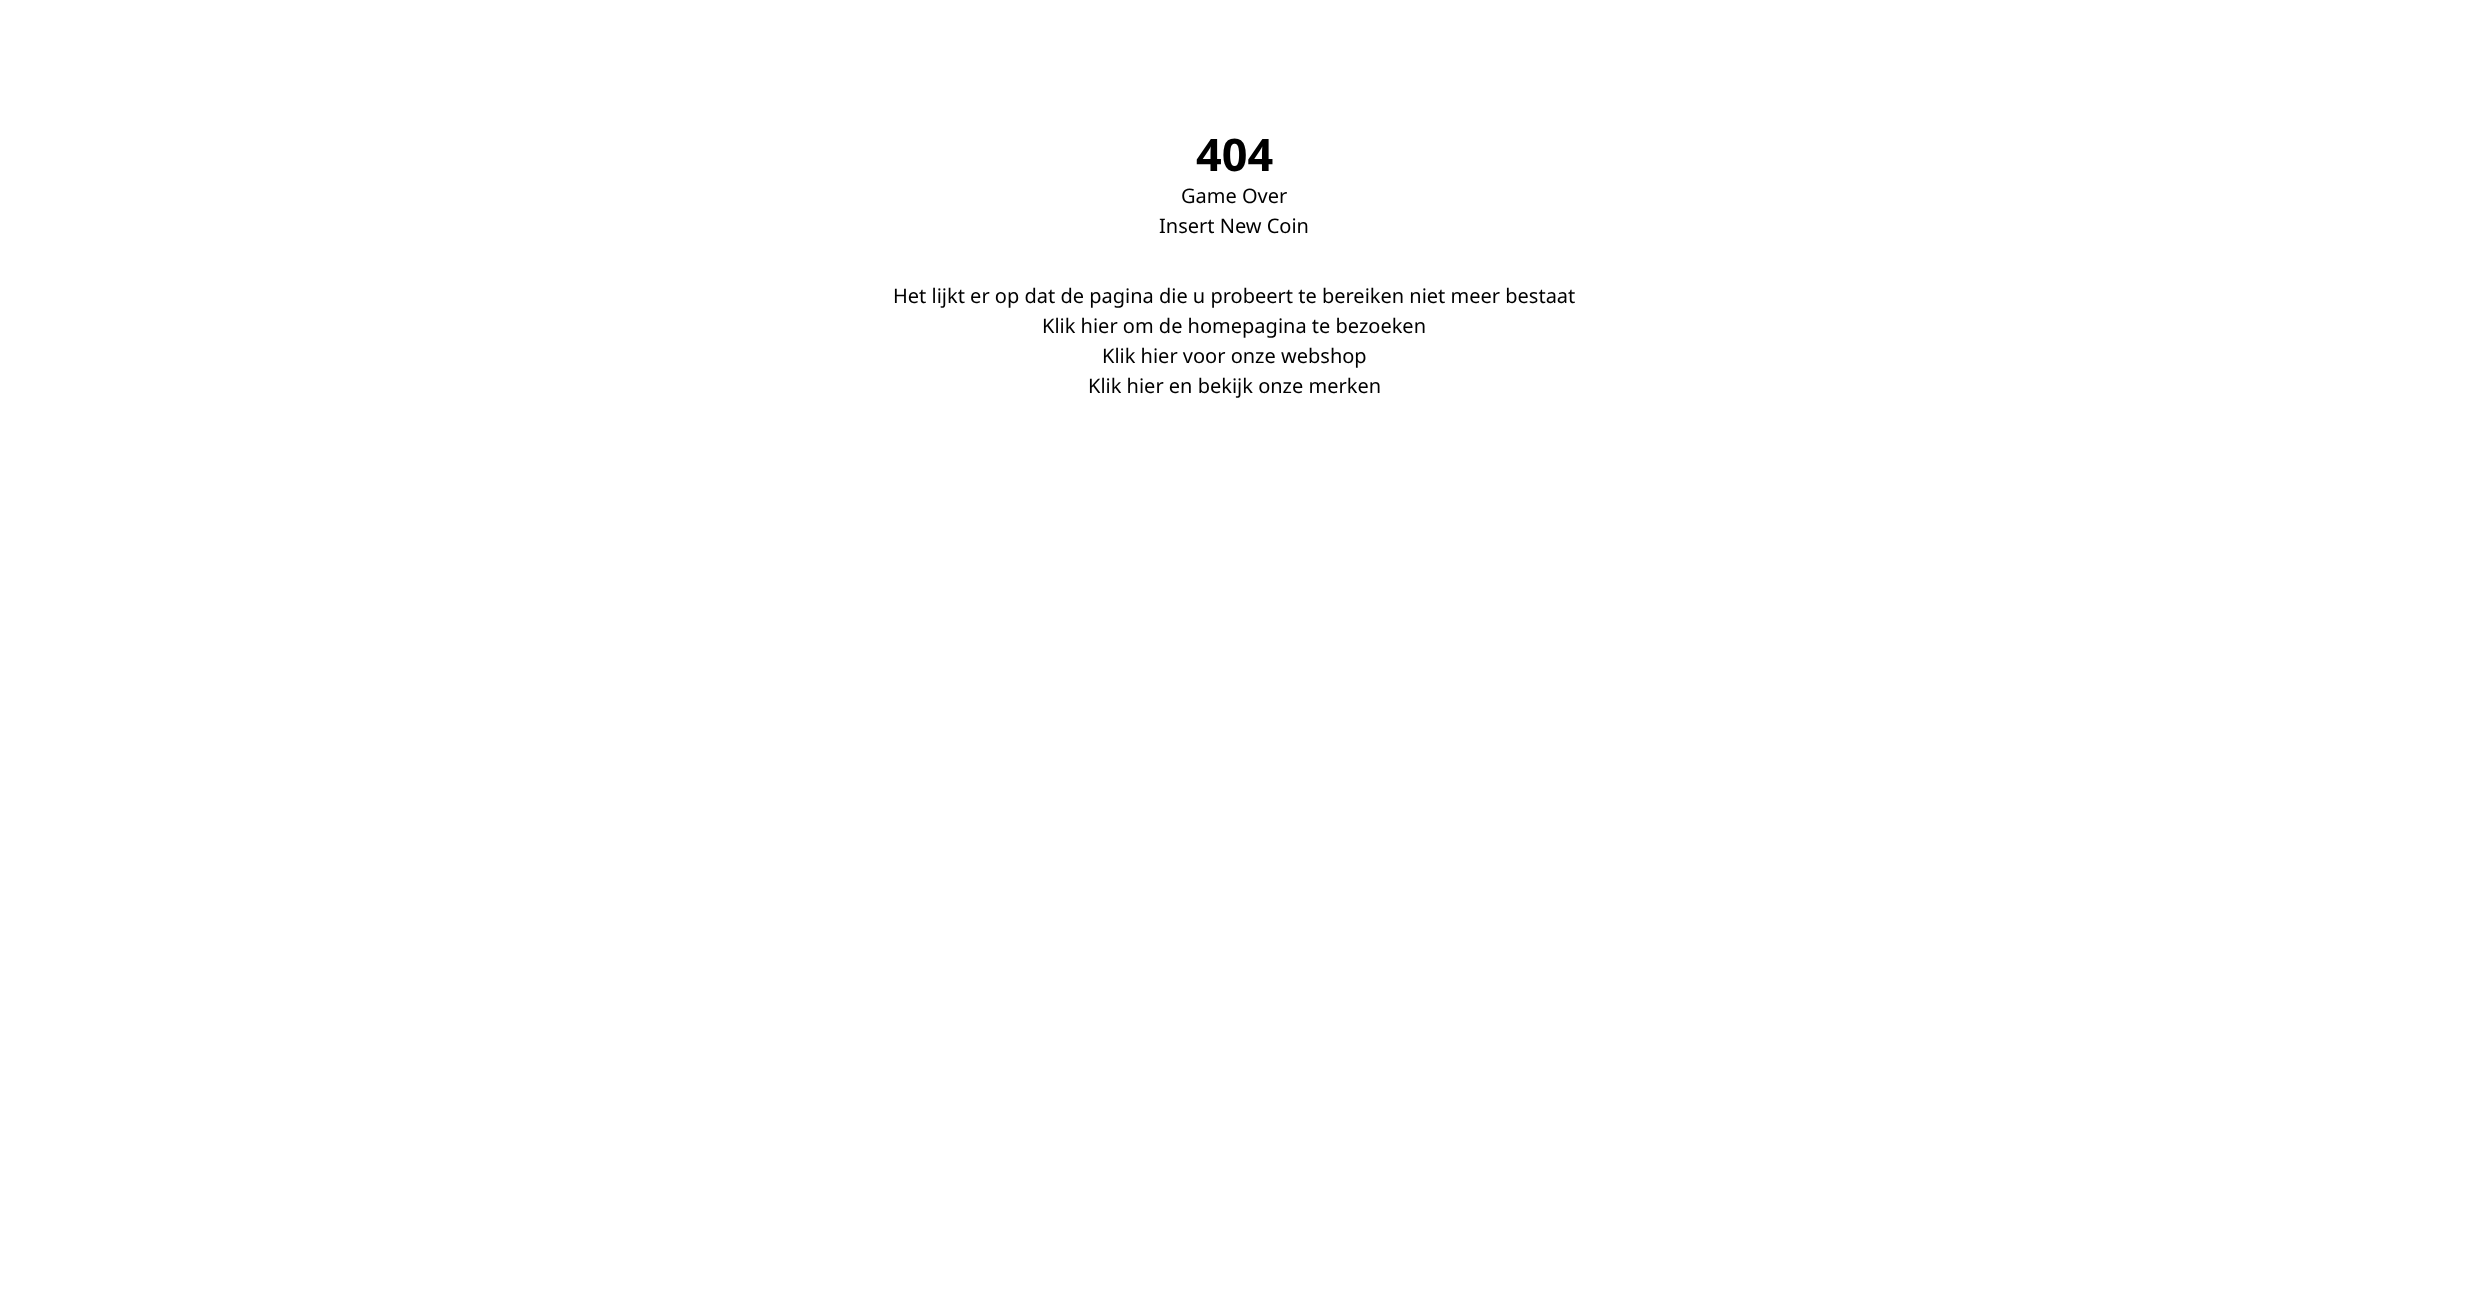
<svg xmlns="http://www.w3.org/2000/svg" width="2468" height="1290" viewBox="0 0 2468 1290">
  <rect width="100%" height="100%" fill="#fff"/>
  <text x="1196" y="171" font-family="Noto Sans" font-size="45" font-weight="bold" fill="#000">404</text>
  <g font-family="Noto Sans" font-size="20" fill="#000">
    <text x="1181" y="203">Game Over</text>
    <text x="1159" y="233">Insert New Coin</text>
    <text x="893" y="303">Het lijkt er op dat de pagina die u probeert te bereiken niet meer bestaat</text>
    <text x="1042" y="333">Klik hier om de homepagina te bezoeken</text>
    <text x="1102" y="363">Klik hier voor onze webshop</text>
    <text x="1088" y="393">Klik hier en bekijk onze merken</text>
  </g>
</svg>
